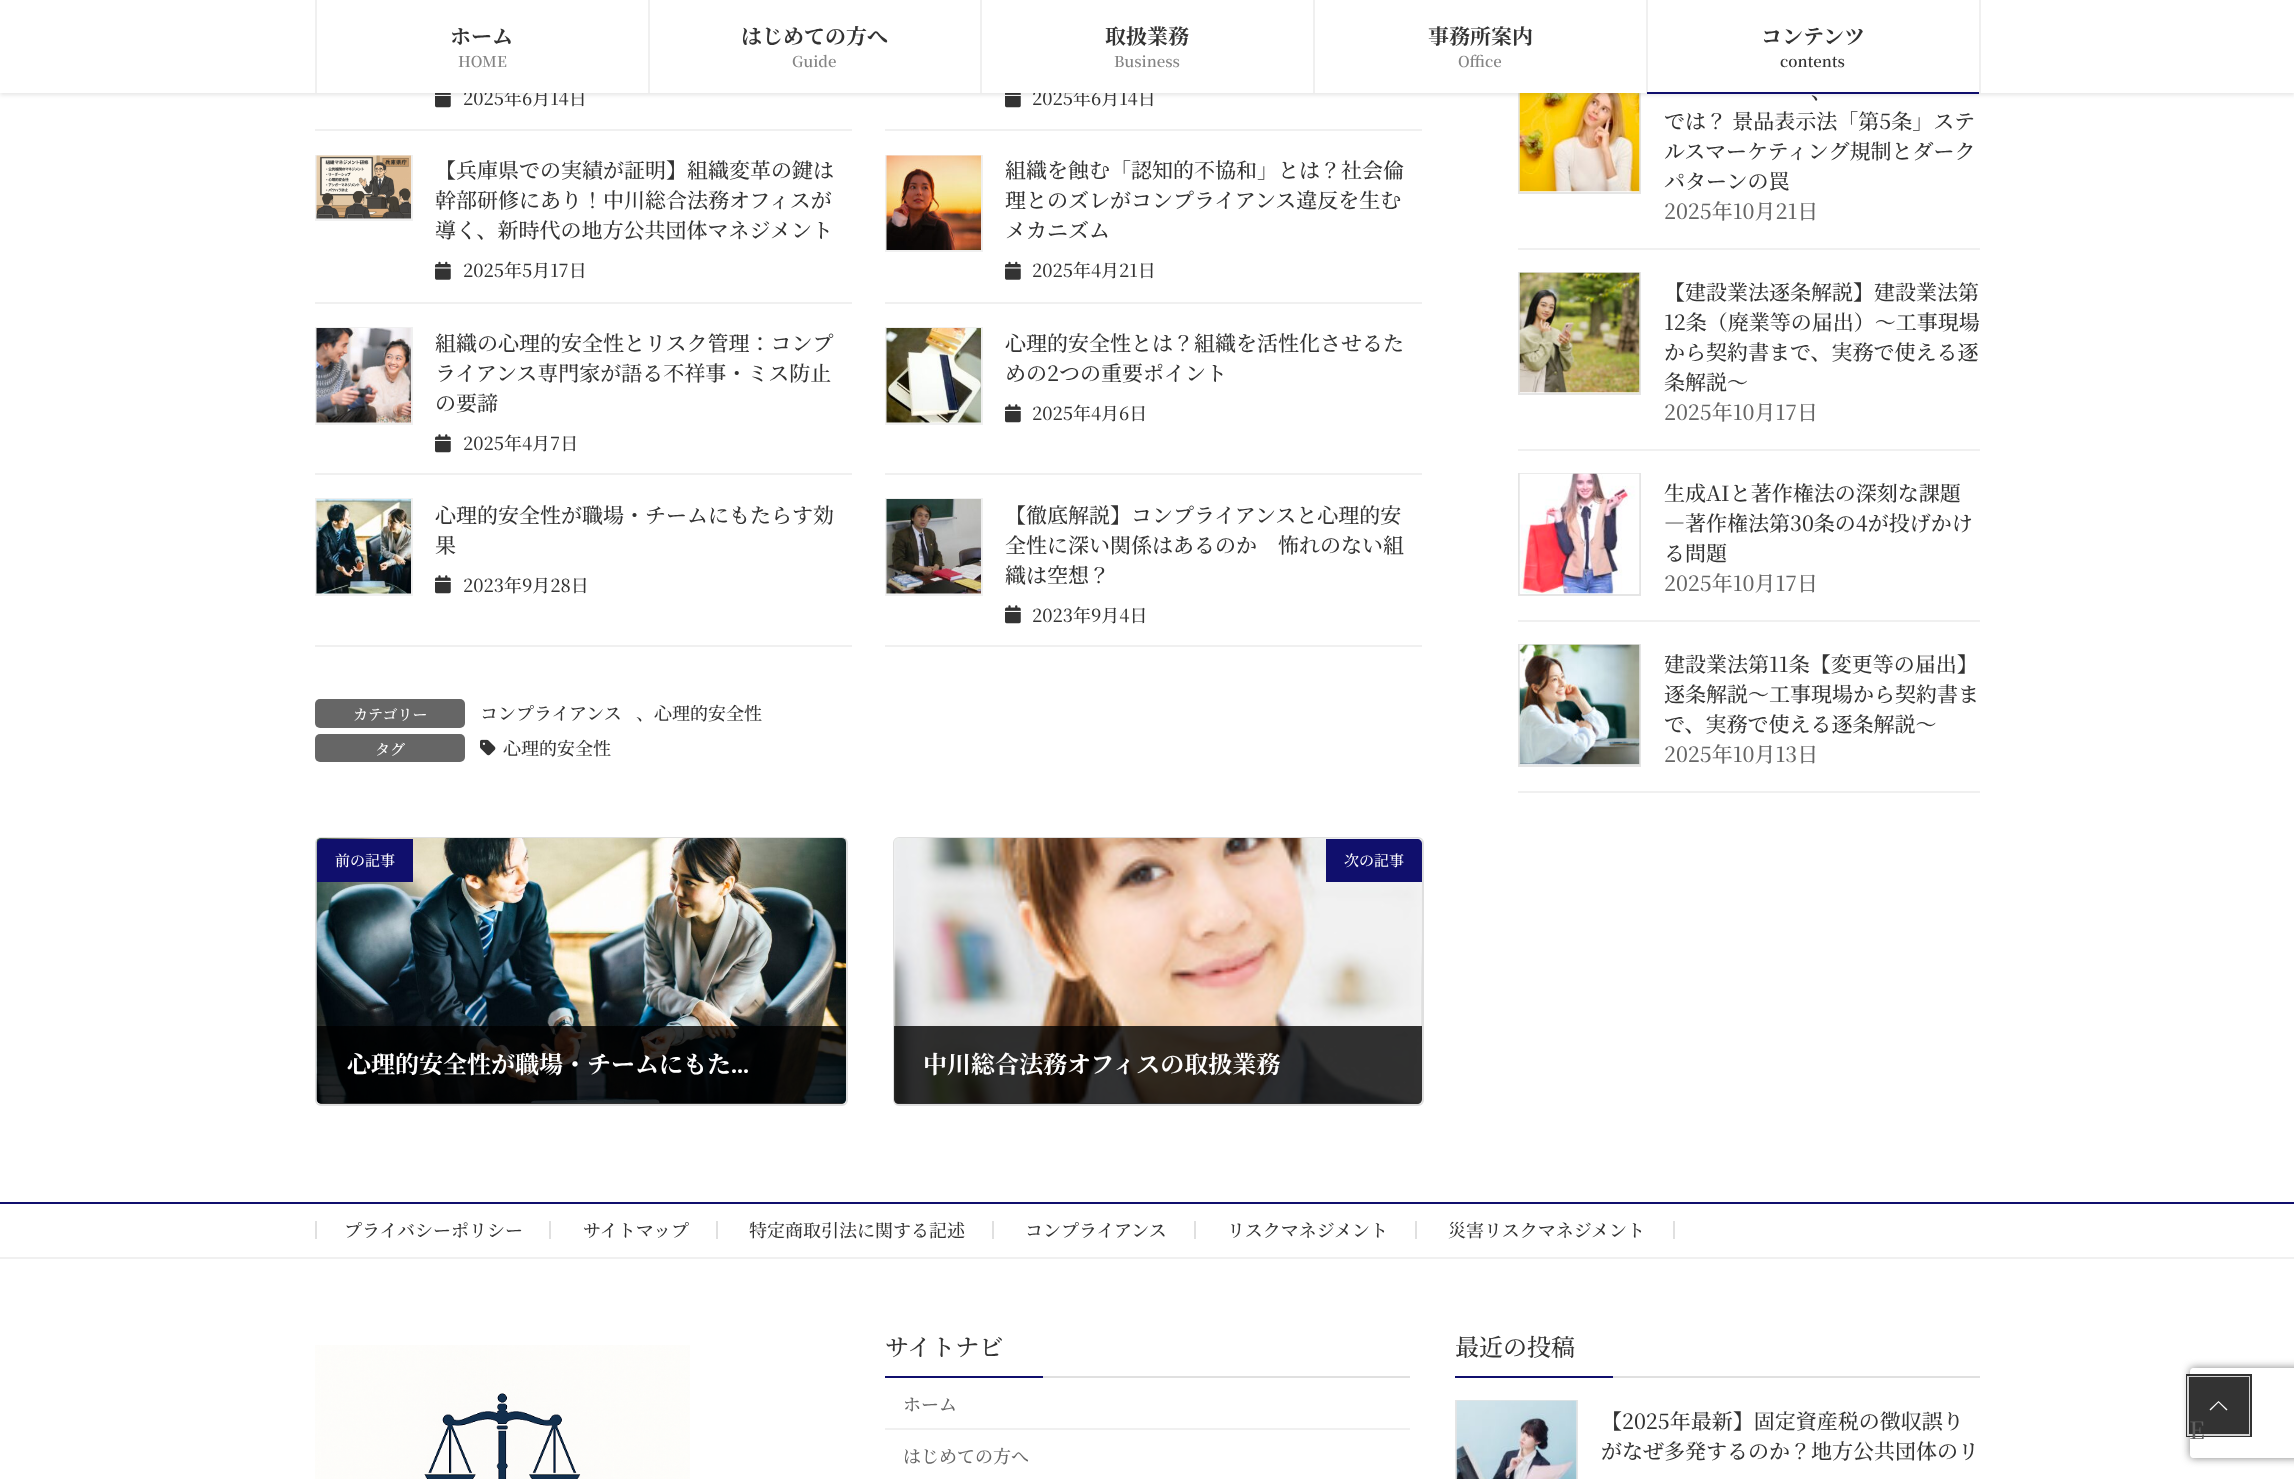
<svg xmlns="http://www.w3.org/2000/svg" width="2294" height="1479" viewBox="0 0 2294 1479">
  <defs>
    <clipPath id="clip1"><rect x="317" y="839" width="529" height="265" rx="5"/></clipPath>
    <clipPath id="clip2"><rect x="894" y="839" width="528" height="265" rx="5"/></clipPath>
    <clipPath id="clip3"><path d="M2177 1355H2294V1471H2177ZM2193 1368H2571C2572.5 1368 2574 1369.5 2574 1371V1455C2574 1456.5 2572.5 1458 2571 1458H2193C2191.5 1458 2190 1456.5 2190 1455V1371C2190 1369.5 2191.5 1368 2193 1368Z" clip-rule="evenodd"/></clipPath>
  </defs>
  <rect width="100%" height="100%" fill="#fff"/>
  <image x="435" y="93" width="16" height="15" href="img/1.png"/>
  <image x="1005" y="93" width="16" height="15" href="img/1.png"/>
  <path d="M1519 72h121v121H1519z" fill="none" stroke="#e5e5e5" stroke-width="2"/>
  <image x="1519" y="93" width="121" height="99" href="img/13.png"/>
  <path d="M0 2h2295v93H0z" fill="#0000001a" filter="blur(2px)"/>
  <path d="M315 129h537v2H315z" fill="#f0f0f0"/>
  <path d="M885 129h537v2H885z" fill="#f0f0f0"/>
  <path d="M315 302h537v2H315z" fill="#f0f0f0"/>
  <path d="M316 156h96v64H316z" fill="none" stroke="#f0f0f0" stroke-width="2"/>
  <image x="316" y="155" width="95" height="64" href="img/2.png"/>
  <image x="435" y="261" width="16" height="19" href="img/3.png"/>
  <path d="M885 302h537v2H885z" fill="#f0f0f0"/>
  <path d="M886 156h96v95H886z" fill="none" stroke="#f0f0f0" stroke-width="2"/>
  <image x="886" y="155" width="95" height="95" href="img/4.png"/>
  <image x="1005" y="261" width="16" height="19" href="img/3.png"/>
  <path d="M315 473h537v2H315z" fill="#f0f0f0"/>
  <path d="M316 328h96v96H316z" fill="none" stroke="#f0f0f0" stroke-width="2"/>
  <image x="316" y="328" width="95" height="95" href="img/5.png"/>
  <image x="435" y="434" width="16" height="19" href="img/6.png"/>
  <path d="M885 473h537v2H885z" fill="#f0f0f0"/>
  <path d="M886 328h96v96H886z" fill="none" stroke="#f0f0f0" stroke-width="2"/>
  <image x="886" y="328" width="95" height="95" href="img/7.png"/>
  <image x="1005" y="404" width="16" height="19" href="img/6.png"/>
  <path d="M315 645h537v2H315z" fill="#f0f0f0"/>
  <path d="M316 499h96v96H316z" fill="none" stroke="#f0f0f0" stroke-width="2"/>
  <image x="316" y="499" width="95" height="95" href="img/8.png"/>
  <image x="435" y="575" width="16" height="19" href="img/6.png"/>
  <path d="M885 645h537v2H885z" fill="#f0f0f0"/>
  <path d="M886 499h96v96H886z" fill="none" stroke="#f0f0f0" stroke-width="2"/>
  <image x="886" y="499" width="95" height="95" href="img/9.png"/>
  <image x="1005" y="605" width="16" height="19" href="img/6.png"/>
  <rect x="315" y="699" width="150" height="29" rx="5" fill="#666"/>
  <rect x="315" y="734" width="150" height="28" rx="5" fill="#666"/>
  <image x="480" y="739" width="16" height="17" href="img/10.png"/>
  <rect x="316" y="838" width="531" height="267" rx="5" fill="none" stroke="#dfdfdf" stroke-width="2"/>
  <image x="316" y="838" width="530" height="266" href="img/11.png"/>
  <g clip-path="url(#clip1)">
    <path d="M317 1103h529v1H317z" fill="#e5e5e5"/>
  </g>
  <path d="M322 839H413V882H317V844C317 841 319 839 322 839Z" fill="#100f6d"/>
  <path d="M317 1026H846V1099C846 1102 844 1104 841 1104H322C319 1104 317 1102 317 1099Z" fill="#000000cc"/>
  <rect x="894" y="838" width="529" height="267" rx="5" fill="none" stroke="#dfdfdf" stroke-width="2"/>
  <image x="894" y="838" width="528" height="266" href="img/12.png"/>
  <g clip-path="url(#clip2)">
    <path d="M894 1103h528v1H894z" fill="#e5e5e5"/>
  </g>
  <path d="M1326 839H1417C1420 839 1422 841 1422 844V882H1326Z" fill="#100f6d"/>
  <path d="M894 1026H1422V1099C1422 1102 1420 1104 1417 1104H899C896 1104 894 1102 894 1099Z" fill="#000000cc"/>
  <path d="M1518 248h462v2H1518z" fill="#f0f0f0"/>
  <path d="M1518 449h462v2H1518z" fill="#f0f0f0"/>
  <path d="M1519 273h121v121H1519z" fill="none" stroke="#e5e5e5" stroke-width="2"/>
  <image x="1519" y="272" width="121" height="121" href="img/14.png"/>
  <path d="M1518 620h462v2H1518z" fill="#f0f0f0"/>
  <path d="M1519 474h121v121H1519z" fill="none" stroke="#e5e5e5" stroke-width="2"/>
  <image x="1519" y="473" width="121" height="121" href="img/15.png"/>
  <path d="M1518 791h462v2H1518z" fill="#f0f0f0"/>
  <path d="M1519 645h121v121H1519z" fill="none" stroke="#e5e5e5" stroke-width="2"/>
  <image x="1519" y="644" width="121" height="121" href="img/16.png"/>
  <path d="M0 1202h2294v2H0z" fill="#100f6d"/>
  <path d="M0 1257h2294v2H0z" fill="#f0f0f0"/>
  <path d="M549 1221h2v18H549z" fill="#e0e0e0"/>
  <path d="M315 1221h2v18H315z" fill="#e0e0e0"/>
  <path d="M716 1221h2v18H716z" fill="#e0e0e0"/>
  <path d="M992 1221h2v18H992z" fill="#e0e0e0"/>
  <path d="M1194 1221h2v18H1194z" fill="#e0e0e0"/>
  <path d="M1415 1221h2v18H1415z" fill="#e0e0e0"/>
  <path d="M1673 1221h2v18H1673z" fill="#e0e0e0"/>
  <image x="315" y="1345" width="375" height="134" href="img/17.png"/>
  <path d="M1043 1376h367v2H1043z" fill="#e0e0e0"/>
  <path d="M885 1376h158v2H885z" fill="#100f6d"/>
  <path d="M885 1428h525v2H885z" fill="#f0f0f0"/>
  <path d="M1613 1376h367v2H1613z" fill="#e0e0e0"/>
  <path d="M1455 1376h158v2H1455z" fill="#100f6d"/>
  <path d="M1456 1401h121v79H1456z" fill="none" stroke="#e5e5e5" stroke-width="2"/>
  <image x="1456" y="1400" width="121" height="79" href="img/18.png"/>
  <g clip-path="url(#clip3)">
    <rect x="2190" y="1368" width="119" height="90" rx="3" fill="#808080" filter="blur(4px)"/>
  </g>
  <path d="M2187.5 1375.5h63v60H2187.5z" fill="none" stroke="#000000cc" stroke-width="3"/>
  <path d="M2188 1377h61v58H2188z" fill="none" stroke="#ffffffcc" stroke-width="2"/>
  <path d="M2189 1377h60v57H2189z" fill="#000000cc"/>
  <path d="M2227.5 1409.5L2226.5 1410.5L2218.5 1402.5L2210.5 1410.5L2209.5 1409.5L2218.5 1401Z" fill="#fff"/>
  <g font-family="Noto Serif JP" font-size="18" font-weight="500" fill="#333">
    <text x="463" y="105">2025年6月14日</text>
    <text x="1032" y="105">2025年6月14日</text>
  </g>
  <path d="M0 0h2294v93H0z" fill="#fff"/>
  <text x="1780" y="67" font-family="Noto Serif JP" font-size="15" font-weight="600" fill="#333">contents</text>
  <text x="1761" y="44" font-family="Noto Serif JP" font-size="21" font-weight="bold" fill="#333">コンテンツ</text>
  <path d="M1646 0h2v93H1646z" fill="#f0f0f0"/>
  <path d="M1647 92h332v2H1647z" fill="#100f6d"/>
  <path d="M1979 0h2v93H1979z" fill="#f0f0f0"/>
  <text x="1458" y="67" font-family="Noto Serif JP" font-size="15" font-weight="600" fill="#858585">Office</text>
  <text x="1428" y="44" font-family="Noto Serif JP" font-size="21" font-weight="bold" fill="#333">事務所案内</text>
  <text x="1114" y="67" font-family="Noto Serif JP" font-size="15" font-weight="600" fill="#858585">Business</text>
  <text x="1105" y="44" font-family="Noto Serif JP" font-size="21" font-weight="bold" fill="#333">取扱業務</text>
  <path d="M1313 0h2v93H1313z" fill="#f0f0f0"/>
  <text x="792" y="67" font-family="Noto Serif JP" font-size="15" font-weight="600" fill="#858585">Guide</text>
  <text x="741" y="44" font-family="Noto Serif JP" font-size="21" font-weight="bold" fill="#333">はじめての方へ</text>
  <path d="M980 0h2v93H980z" fill="#f0f0f0"/>
  <text x="458" y="67" font-family="Noto Serif JP" font-size="15" font-weight="600" fill="#858585">HOME</text>
  <text x="450" y="44" font-family="Noto Serif JP" font-size="21" font-weight="bold" fill="#333">ホーム</text>
  <path d="M315 0h2v93H315z" fill="#f0f0f0"/>
  <path d="M648 0h2v93H648z" fill="#f0f0f0"/>
  <g font-family="Noto Serif JP" font-size="21" font-weight="500" fill="#333">
    <text x="435" y="178">【兵庫県での実績が証明】組織変革の鍵は</text>
    <text x="435" y="208">幹部研修にあり！中川総合法務オフィスが</text>
    <text x="435" y="238">導く、新時代の地方公共団体マネジメント</text>
  </g>
  <text x="463" y="277" font-family="Noto Serif JP" font-size="18" font-weight="500" fill="#333">2025年5月17日</text>
  <g font-family="Noto Serif JP" font-size="21" font-weight="500" fill="#333">
    <text x="1005" y="178">組織を蝕む「認知的不協和」とは？社会倫</text>
    <text x="1005" y="208">理とのズレがコンプライアンス違反を生む</text>
    <text x="1005" y="238">メカニズム</text>
  </g>
  <text x="1032" y="277" font-family="Noto Serif JP" font-size="18" font-weight="500" fill="#333">2025年4月21日</text>
  <g font-family="Noto Serif JP" font-size="21" font-weight="500" fill="#333">
    <text x="435" y="351">組織の心理的安全性とリスク管理：コンプ</text>
    <text x="435" y="381">ライアンス専門家が語る不祥事・ミス防止</text>
    <text x="435" y="411">の要諦</text>
  </g>
  <text x="463" y="450" font-family="Noto Serif JP" font-size="18" font-weight="500" fill="#333">2025年4月7日</text>
  <g font-family="Noto Serif JP" font-size="21" font-weight="500" fill="#333">
    <text x="1005" y="351">心理的安全性とは？組織を活性化させるた</text>
    <text x="1005" y="381">めの2つの重要ポイント</text>
  </g>
  <text x="1032" y="420" font-family="Noto Serif JP" font-size="18" font-weight="500" fill="#333">2025年4月6日</text>
  <g font-family="Noto Serif JP" font-size="21" font-weight="500" fill="#333">
    <text x="435" y="523">心理的安全性が職場・チームにもたらす効</text>
    <text x="435" y="553">果</text>
  </g>
  <text x="463" y="592" font-family="Noto Serif JP" font-size="18" font-weight="500" fill="#333">2023年9月28日</text>
  <g font-family="Noto Serif JP" font-size="21" font-weight="500" fill="#333">
    <text x="1005" y="523">【徹底解説】コンプライアンスと心理的安</text>
    <text x="1005" y="553">全性に深い関係はあるのか　怖れのない組</text>
    <text x="1005" y="583">織は空想？</text>
  </g>
  <text x="1032" y="622" font-family="Noto Serif JP" font-size="18" font-weight="500" fill="#333">2023年9月4日</text>
  <text x="353" y="720" font-family="Noto Serif JP" font-size="15" font-weight="500" fill="#fff">カテゴリー</text>
  <g font-family="Noto Serif JP" font-size="18" font-weight="500" fill="#333">
    <text x="480" y="720">コンプライアンス</text>
    <text x="636" y="720">、心理的安全性</text>
  </g>
  <text x="375" y="755" font-family="Noto Serif JP" font-size="15" font-weight="500" fill="#fff">タグ</text>
  <text x="503" y="755" font-family="Noto Serif JP" font-size="18" font-weight="500" fill="#333">心理的安全性</text>
  <text x="335" y="866" font-family="Noto Serif JP" font-size="15" font-weight="500" fill="#fff">前の記事</text>
  <text x="347" y="1073" font-family="Noto Serif JP" font-size="24" font-weight="bold" fill="#fff">心理的安全性が職場・チームにもた...</text>
  <text x="1344" y="866" font-family="Noto Serif JP" font-size="15" font-weight="500" fill="#fff">次の記事</text>
  <text x="923" y="1073" font-family="Noto Serif JP" font-size="24" font-weight="bold" fill="#fff">中川総合法務オフィスの取扱業務</text>
  <g font-family="Noto Serif JP" font-size="21" font-weight="500" fill="#333">
    <text x="1811" y="99">、</text>
    <text x="1664" y="129">では？ 景品表示法「第5条」ステ</text>
    <text x="1664" y="159">ルスマーケティング規制とダーク</text>
    <text x="1664" y="189">パターンの罠</text>
  </g>
  <text x="1664" y="219" font-family="Noto Serif JP" font-size="21" font-weight="500" fill="#666">2025年10月21日</text>
  <g font-family="Noto Serif JP" font-size="21" font-weight="500" fill="#333">
    <text x="1664" y="300">【建設業法逐条解説】建設業法第</text>
    <text x="1664" y="330">12条（廃業等の届出）～工事現場</text>
    <text x="1664" y="360">から契約書まで、実務で使える逐</text>
    <text x="1664" y="390">条解説～</text>
  </g>
  <text x="1664" y="420" font-family="Noto Serif JP" font-size="21" font-weight="500" fill="#666">2025年10月17日</text>
  <g font-family="Noto Serif JP" font-size="21" font-weight="500" fill="#333">
    <text x="1664" y="501">生成AIと著作権法の深刻な課題</text>
    <text x="1664" y="531">―著作権法第30条の4が投げかけ</text>
    <text x="1664" y="561">る問題</text>
  </g>
  <text x="1664" y="591" font-family="Noto Serif JP" font-size="21" font-weight="500" fill="#666">2025年10月17日</text>
  <g font-family="Noto Serif JP" font-size="21" font-weight="500" fill="#333">
    <text x="1664" y="672">建設業法第11条【変更等の届出】</text>
    <text x="1664" y="702">逐条解説～工事現場から契約書ま</text>
    <text x="1664" y="732">で、実務で使える逐条解説～</text>
  </g>
  <text x="1664" y="762" font-family="Noto Serif JP" font-size="21" font-weight="500" fill="#666">2025年10月13日</text>
  <g font-family="Noto Serif JP" font-size="18" font-weight="500" fill="#333">
    <text x="344" y="1237">プライバシーポリシー</text>
    <text x="583" y="1237">サイトマップ</text>
    <text x="749" y="1237">特定商取引法に関する記述</text>
    <text x="1025" y="1237">コンプライアンス</text>
    <text x="1227" y="1237">リスクマネジメント</text>
    <text x="1448" y="1237">災害リスクマネジメント</text>
  </g>
  <text x="885" y="1356" font-family="Noto Serif JP" font-size="24" font-weight="500" fill="#333">サイトナビ</text>
  <g font-family="Noto Serif JP" font-size="18" font-weight="500" fill="#666">
    <text x="903" y="1411">ホーム</text>
    <text x="903" y="1463">はじめての方へ</text>
  </g>
  <text x="1455" y="1356" font-family="Noto Serif JP" font-size="24" font-weight="500" fill="#333">最近の投稿</text>
  <g font-family="Noto Serif JP" font-size="21" font-weight="500" fill="#333">
    <text x="1601" y="1429">【2025年最新】固定資産税の徴収誤り</text>
    <text x="1601" y="1459">がなぜ多発するのか？地方公共団体のリ</text>
  </g>
  <text x="2189" y="1439" font-family="Noto Serif JP" font-size="24" font-weight="500" fill="#5f5f5f">E</text>
</svg>
